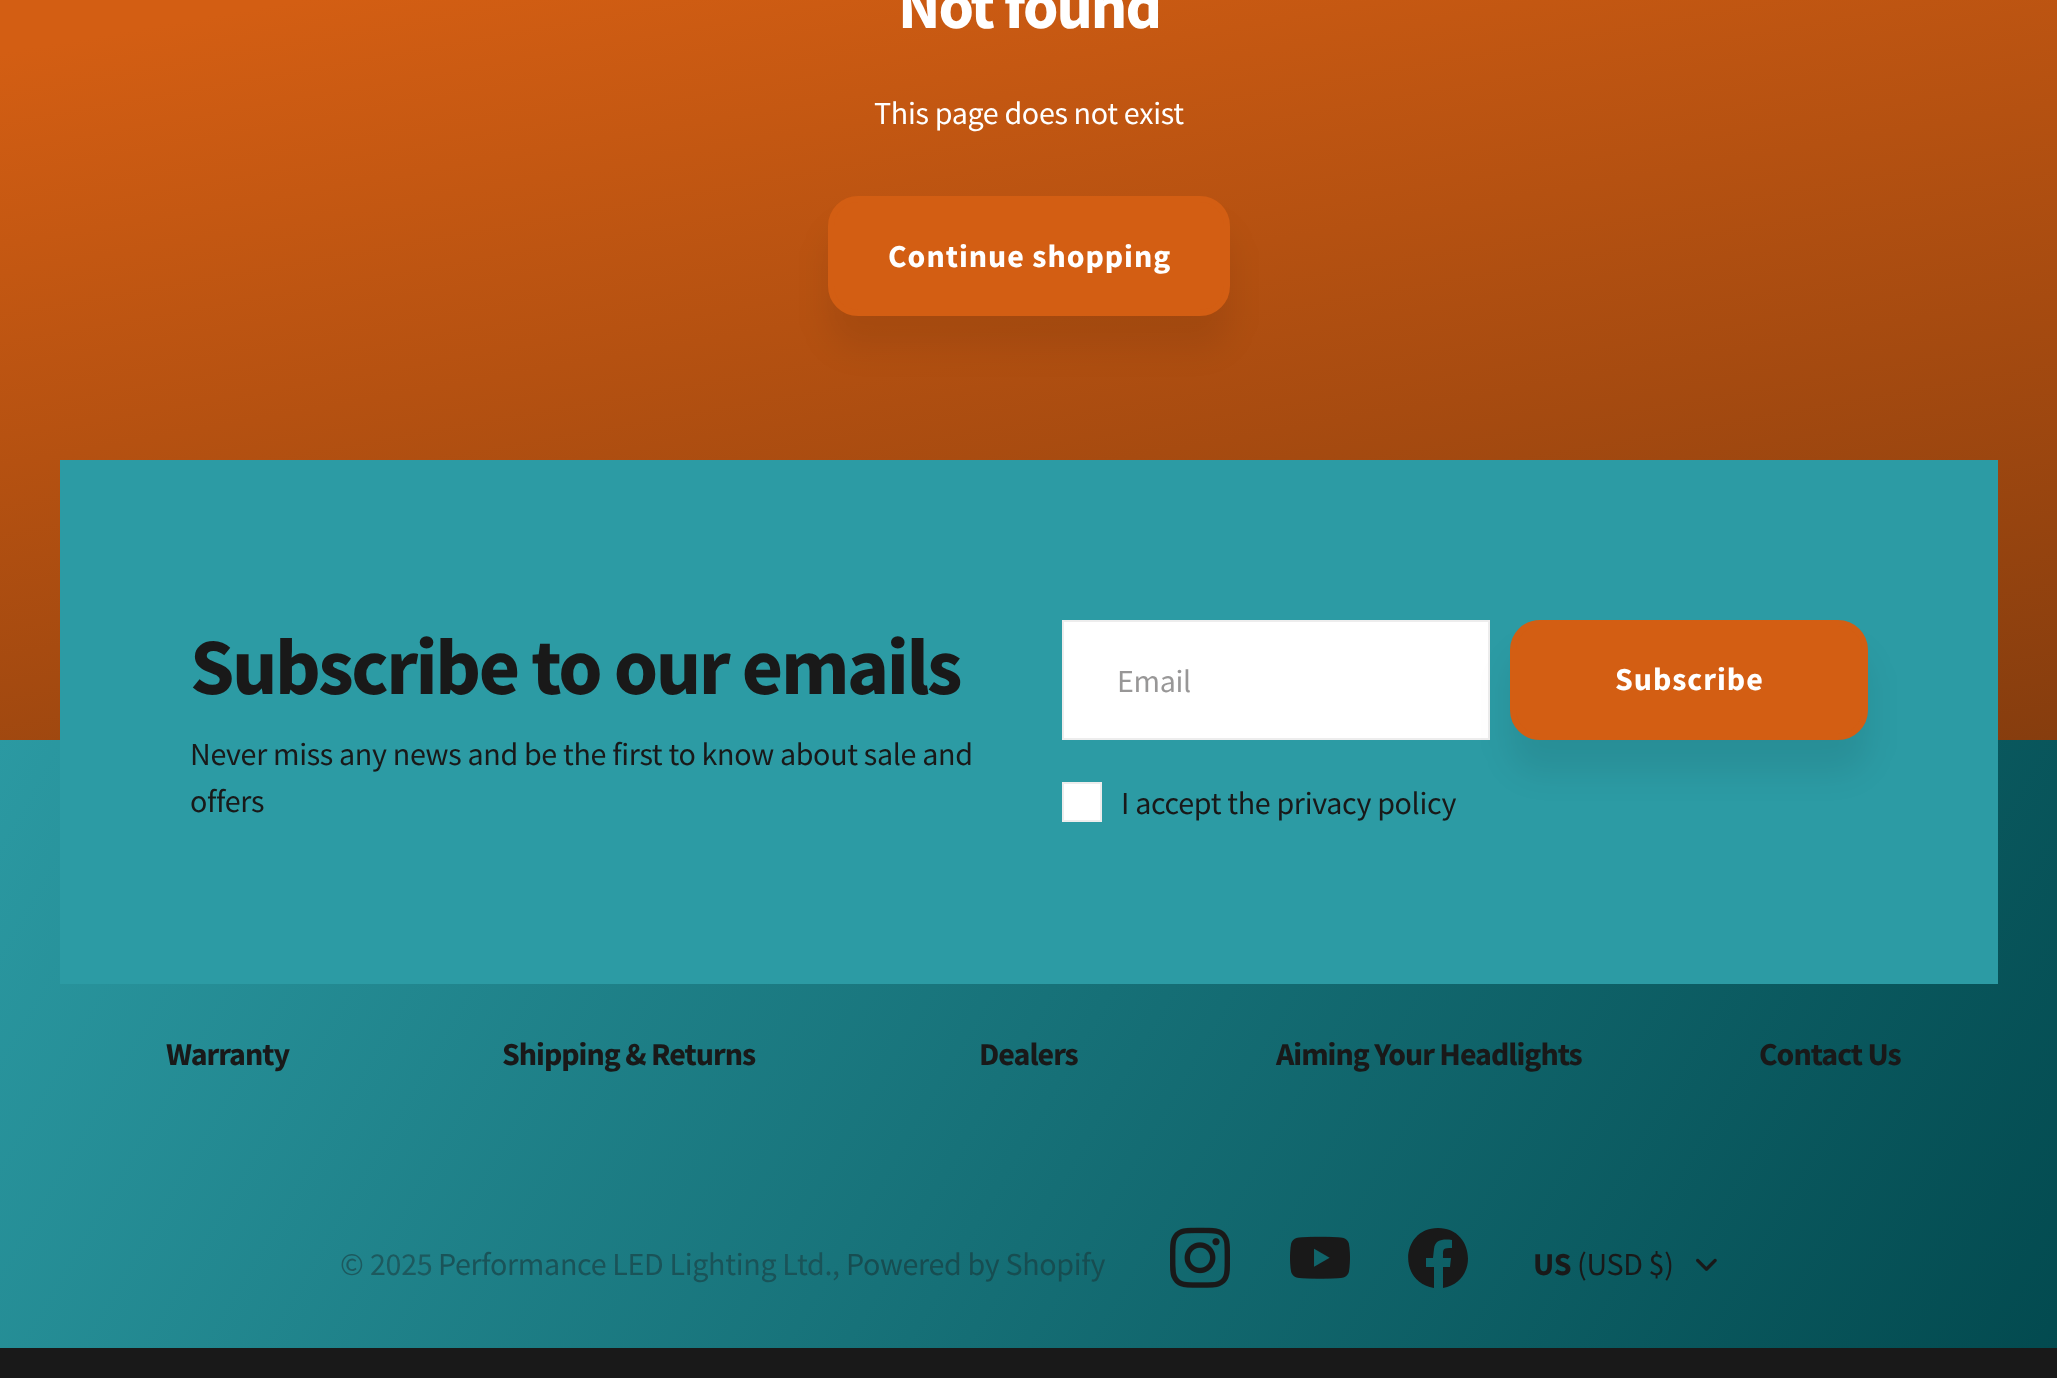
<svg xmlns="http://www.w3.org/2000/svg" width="2057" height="1378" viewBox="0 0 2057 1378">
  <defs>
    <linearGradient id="g1" gradientUnits="userSpaceOnUse" x1="880" y1="-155" x2="1178" y2="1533"><stop offset="0.03" stop-color="#d35e13"/><stop offset="1" stop-color="#58290b"/></linearGradient>
    <linearGradient id="g2" gradientUnits="userSpaceOnUse" x1="42" y1="559" x2="2016" y2="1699"><stop offset="0" stop-color="#2c9ba4"/><stop offset="1" stop-color="#00454a"/></linearGradient>
  </defs>
  <rect width="100%" height="100%" fill="#fff"/>
  <path d="M0 0h2057v740H0z" fill="url(#g1)"/>
  <rect x="828" y="228" width="402" height="120" rx="30" fill="#00000014" filter="blur(16px)"/>
  <rect x="831" y="199" width="396" height="114" rx="27" fill="#d35e13" stroke="#d35e13" stroke-width="6"/>
  <path d="M0 740h2057v608H0z" fill="url(#g2)"/>
  <path d="M60 460h1938v524H60z" fill="#2c9ba4"/>
  <path d="M1063 621h426v118H1063z" fill="#fff" stroke="#ededed" stroke-width="2"/>
  <rect x="1510" y="652" width="358" height="120" rx="30" fill="#00000014" filter="blur(16px)"/>
  <rect x="1513" y="623" width="352" height="114" rx="27" fill="#d35e13" stroke="#d35e13" stroke-width="6"/>
  <path d="M1063 783h38v38H1063z" fill="#fff" stroke="#ededed" stroke-width="2"/>
  <image x="1170" y="1227" width="60" height="61" href="img/1.png"/>
  <image x="1290" y="1236" width="60" height="43" href="img/2.png"/>
  <path d="M1438 1228C1401 1228 1397 1282 1434 1288V1267H1426V1258H1433L1434 1249C1435 1239 1444 1239 1452 1240V1248C1442 1248 1443 1249 1443 1258H1451L1450 1267H1443V1288C1479 1282 1475 1228 1438 1228Z" fill="#191919"/>
  <image x="1696" y="1258" width="21" height="13" href="img/3.png"/>
  <path d="M0 1348h2057v30H0z" fill="#191919"/>
  <text x="898" y="28" font-family="Source Sans Pro" font-size="64" font-weight="bold" letter-spacing="-2" fill="#fff">Not found</text>
  <text x="874" y="124" font-family="Source Sans Pro" font-size="32" letter-spacing="-0.32" fill="#fff">This page does not exist</text>
  <text x="888" y="267" font-family="Source Sans Pro" font-size="32" font-weight="bold" letter-spacing="1" fill="#fff">Continue shopping</text>
  <text x="190" y="694" font-family="Source Sans Pro" font-size="80" font-weight="bold" letter-spacing="-2.4" fill="#191919">Subscribe to our emails</text>
  <g font-family="Source Sans Pro" font-size="32" letter-spacing="-0.32" fill="#191919">
    <text x="190" y="765">Never miss any news and be the first to know about sale and</text>
    <text x="190" y="812">offers</text>
  </g>
  <text x="1117" y="692" font-family="Source Sans Pro" font-size="32" letter-spacing="-0.32" fill="#989797">Email</text>
  <text x="1615" y="690" font-family="Source Sans Pro" font-size="32" font-weight="bold" letter-spacing="1" fill="#fff">Subscribe</text>
  <text x="1121" y="814" font-family="Source Sans Pro" font-size="32" letter-spacing="-0.32" fill="#191919">I accept the privacy policy</text>
  <g font-family="Source Sans Pro" font-size="32" font-weight="bold" letter-spacing="-1" fill="#191919">
    <text x="166" y="1065">Warranty</text>
    <text x="502" y="1065">Shipping &amp; Returns</text>
    <text x="979" y="1065">Dealers</text>
    <text x="1276" y="1065">Aiming Your Headlights</text>
    <text x="1759" y="1065">Contact Us</text>
  </g>
  <g font-family="Source Sans Pro" font-size="32" letter-spacing="-0.32" fill="#1d595e">
    <text x="340" y="1275">©</text>
    <text x="370" y="1275">2025</text>
  </g>
  <text x="438" y="1275" font-family="Source Sans Pro" font-size="32" letter-spacing="-0.32" fill="#1a5358">Performance LED Lighting Ltd.,</text>
  <text x="846" y="1275" font-family="Source Sans Pro" font-size="32" letter-spacing="-0.32" fill="#174d51">Powered by Shopify</text>
  <text x="1533" y="1275" font-family="Source Sans Pro" font-size="32" font-weight="bold" letter-spacing="-0.32" fill="#191919">US</text>
  <text x="1577" y="1275" font-family="Source Sans Pro" font-size="32" letter-spacing="-0.32" fill="#191919">(USD $)</text>
</svg>
